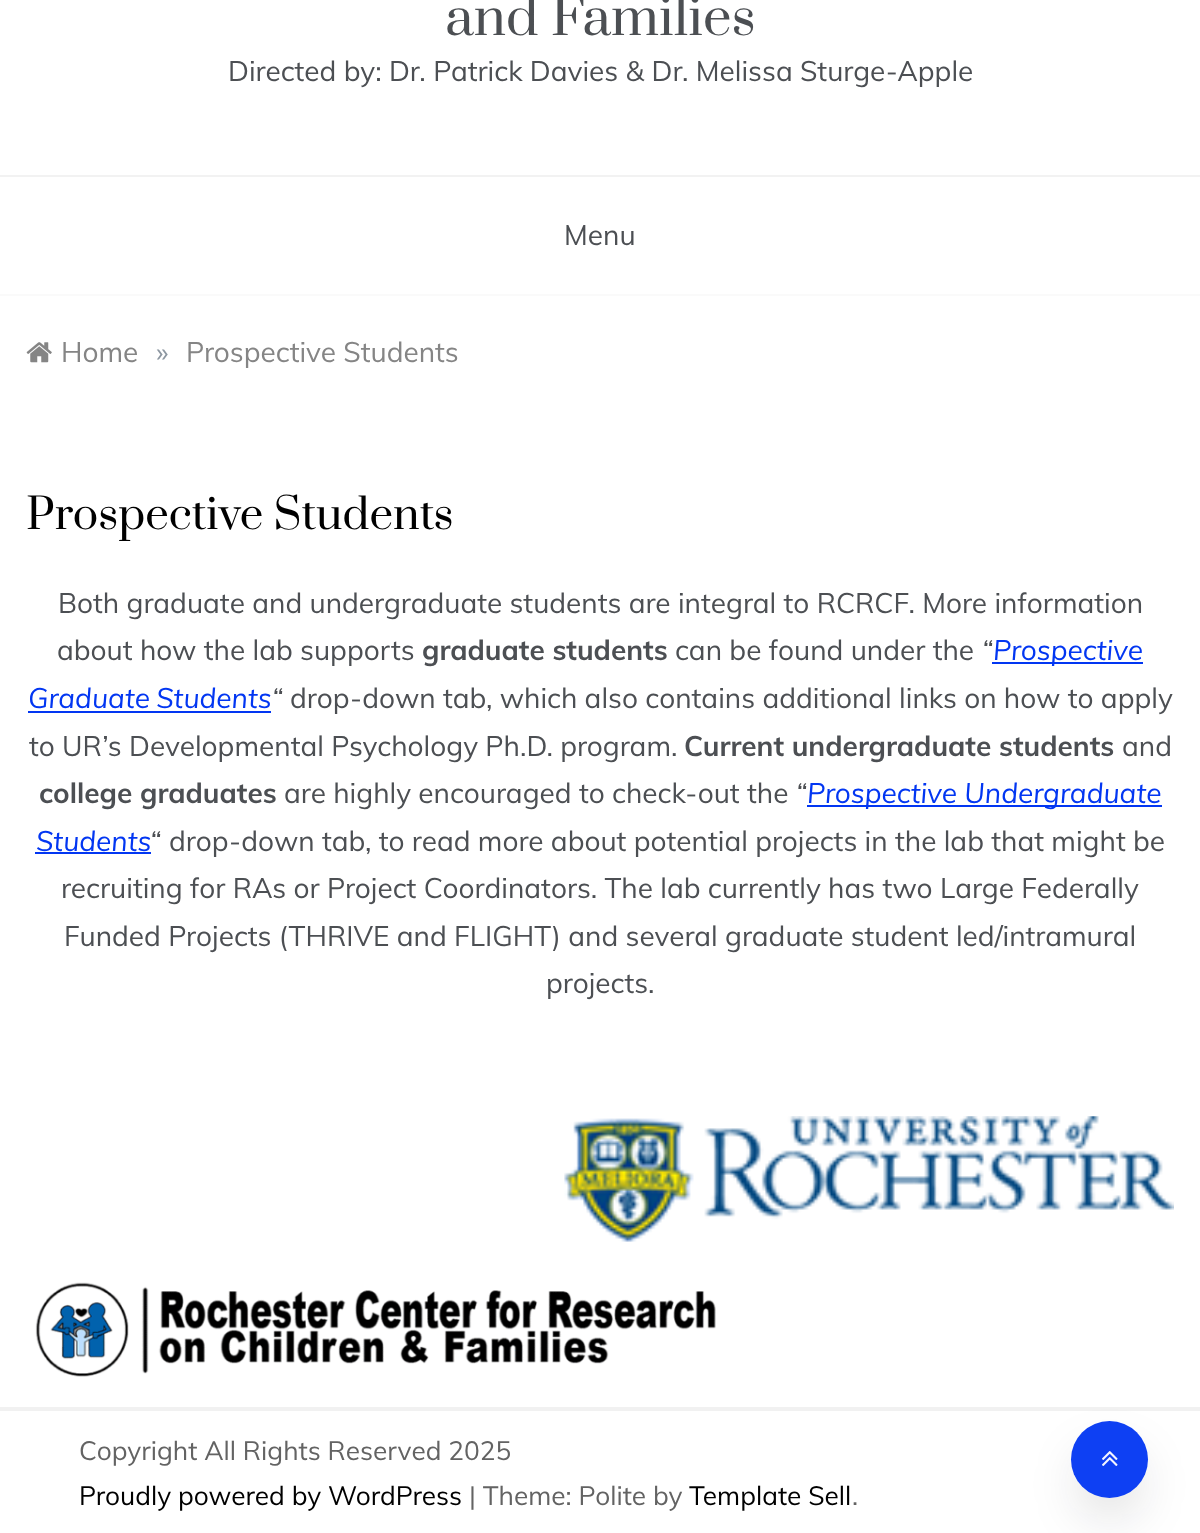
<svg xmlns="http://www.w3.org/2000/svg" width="1200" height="1533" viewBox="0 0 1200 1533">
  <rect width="100%" height="100%" fill="#fff"/>
  <path d="M0 294h1200v2H0z" fill="#fafafa"/>
  <path d="M0 175h1200v2H0z" fill="#f2f2f2"/>
  <image x="26" y="342" width="26" height="21" href="img/1.png"/>
  <path d="M992 662h151v2H992z" fill="#0236f2"/>
  <path d="M28 711h243v2H28z" fill="#0236f2"/>
  <path d="M807 805h355v2H807z" fill="#0236f2"/>
  <path d="M35 852h116v2H35z" fill="#0236f2"/>
  <image x="564" y="1116" width="610" height="126" href="img/2.png"/>
  <image x="35" y="1282" width="681" height="95" href="img/3.png"/>
  <path d="M0 1407h1200v4H0z" fill="#f1f1f1"/>
  <rect x="1078" y="1453" width="63" height="63" rx="31.5" fill="#0e111424" filter="blur(24.5px)"/>
  <circle cx="1109.5" cy="1459.5" r="38.5" fill="#0e40f3"/>
  <image x="1102" y="1451" width="16" height="15" href="img/4.png"/>
  <text x="445" y="35" font-family="Prata" font-size="50.75" fill="#4c4f53">and Families</text>
  <g font-family="Muli" font-size="28" fill="#4c4f53">
    <text x="228" y="81">Directed by: Dr. Patrick Davies &amp; Dr. Melissa Sturge-Apple</text>
    <text x="564" y="245">Menu</text>
  </g>
  <text x="61" y="362" font-family="Muli" font-size="28" fill="#858585">Home</text>
  <text x="156" y="362" font-family="Muli" font-size="28" fill="#8d97a1">»</text>
  <text x="186" y="362" font-family="Muli" font-size="28" fill="#858585">Prospective Students</text>
  <text x="26" y="529" font-family="Prata" font-size="42" fill="#000">Prospective Students</text>
  <g font-family="Muli" font-size="28" fill="#4c4f53">
    <text x="58" y="613">Both graduate and undergraduate students are integral to RCRCF. More information</text>
    <text x="57" y="660">about how the lab supports</text>
  </g>
  <text x="422" y="660" font-family="Muli" font-size="28" font-weight="bold" fill="#4c4f53">graduate students</text>
  <text x="675" y="660" font-family="Muli" font-size="28" fill="#4c4f53">can be found under the</text>
  <text x="982" y="660" font-family="Muli" font-size="28" font-style="italic" fill="#4c4f53">“</text>
  <g font-family="Muli" font-size="28" font-style="italic" fill="#0236f2">
    <text x="993" y="660">Prospective</text>
    <text x="28" y="708" word-spacing="-1">Graduate Students</text>
  </g>
  <text x="272" y="708" font-family="Muli" font-size="28" font-style="italic" fill="#4c4f53">“</text>
  <g font-family="Muli" font-size="28" fill="#4c4f53">
    <text x="290" y="708">drop-down tab, which also contains additional links on how to apply</text>
    <text x="29" y="756">to UR’s Developmental Psychology Ph.D. program.</text>
  </g>
  <text x="684" y="756" font-family="Muli" font-size="28" font-weight="bold" fill="#4c4f53">Current undergraduate students</text>
  <text x="1122" y="756" font-family="Muli" font-size="28" fill="#4c4f53">and</text>
  <text x="39" y="803" font-family="Muli" font-size="28" font-weight="bold" fill="#4c4f53">college graduates</text>
  <text x="284" y="803" font-family="Muli" font-size="28" fill="#4c4f53">are highly encouraged to check-out the</text>
  <text x="796" y="803" font-family="Muli" font-size="28" font-style="italic" fill="#4c4f53">“</text>
  <g font-family="Muli" font-size="28" font-style="italic" fill="#0236f2">
    <text x="807" y="803">Prospective Undergraduate</text>
    <text x="36" y="851">Students</text>
  </g>
  <text x="150" y="851" font-family="Muli" font-size="28" font-style="italic" fill="#4c4f53">“</text>
  <g font-family="Muli" font-size="28" fill="#4c4f53">
    <text x="169" y="851">drop-down tab, to read more about potential projects in the lab that might be</text>
    <text x="61" y="898">recruiting for RAs or Project Coordinators. The lab currently has two Large Federally</text>
    <text x="64" y="946">Funded Projects (THRIVE and FLIGHT) and several graduate student led/intramural</text>
    <text x="546" y="993">projects.</text>
  </g>
  <text x="79" y="1460" font-family="Muli" font-size="26.25" fill="#636363">Copyright All Rights Reserved 2025</text>
  <text x="79" y="1505" font-family="Muli" font-size="26.25" fill="#000">Proudly powered by WordPress</text>
  <text x="469" y="1505" font-family="Muli" font-size="26.25" fill="#636363">| Theme: Polite by</text>
  <text x="689" y="1505" font-family="Muli" font-size="26.25" fill="#000">Template Sell</text>
  <text x="852" y="1505" font-family="Muli" font-size="26.25" fill="#636363">.</text>
</svg>
